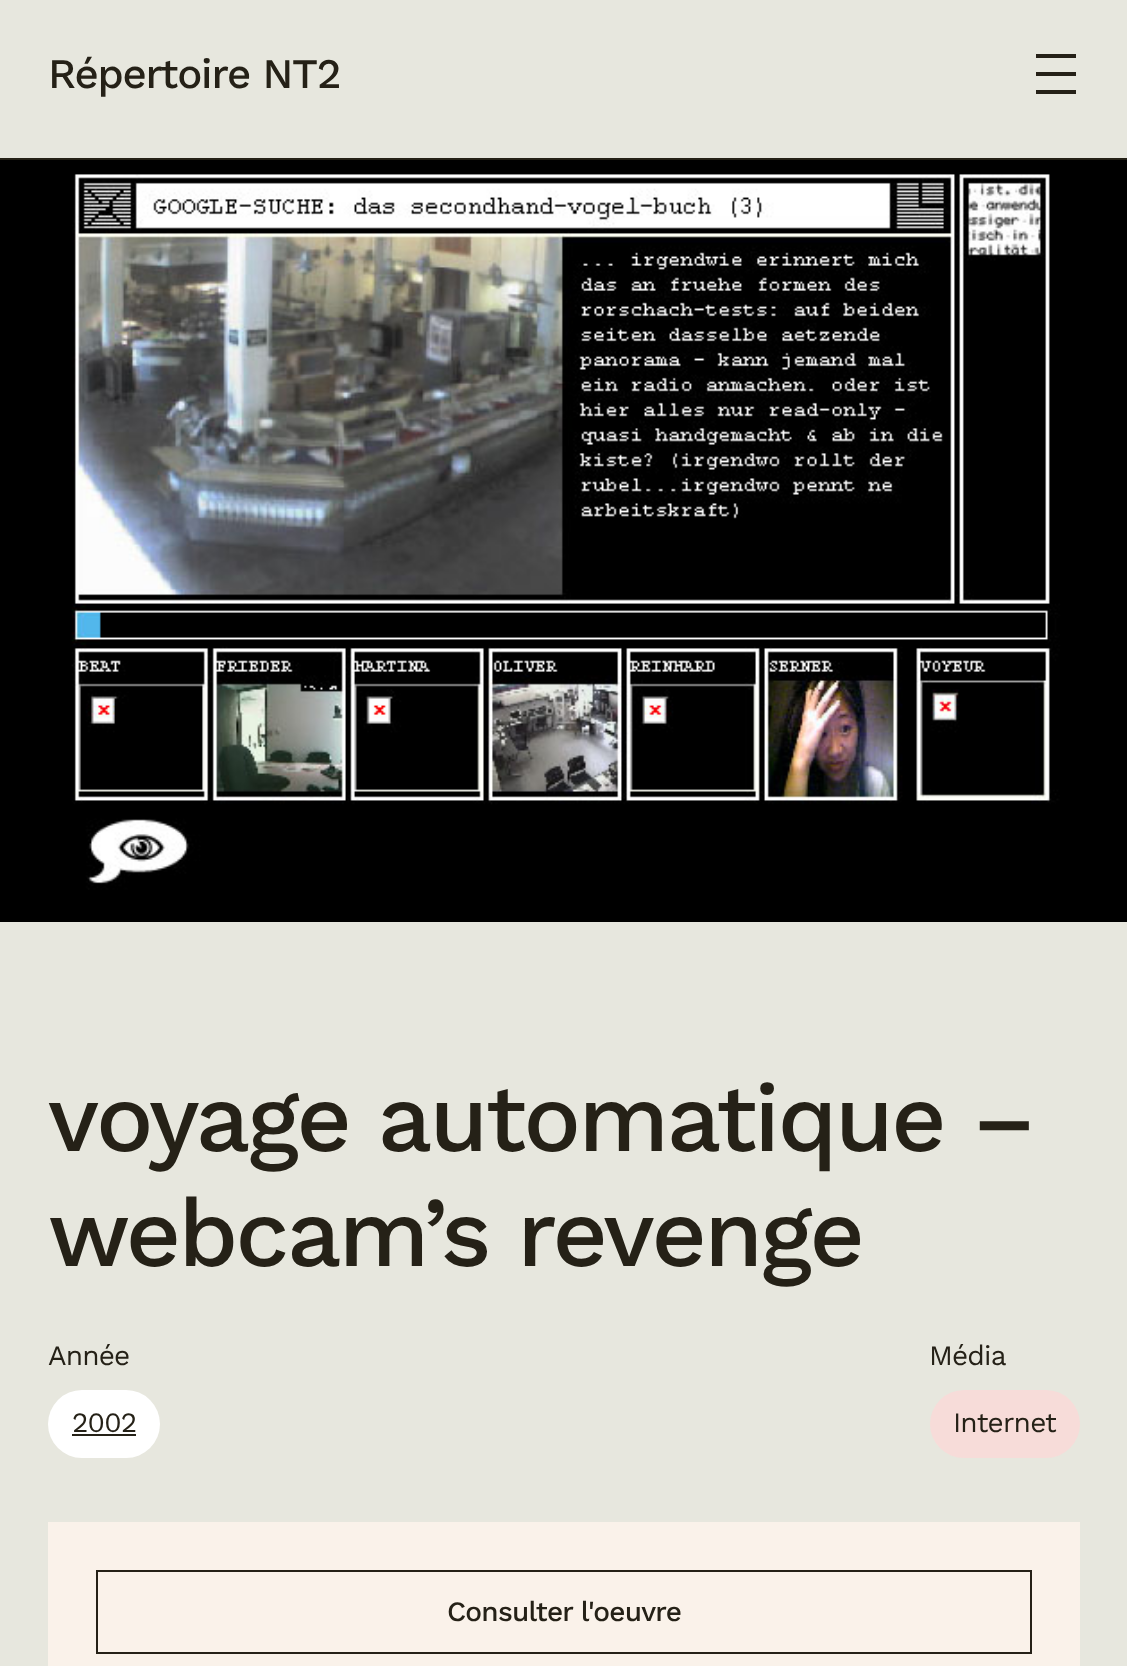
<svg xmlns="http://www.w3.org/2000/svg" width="1127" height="1666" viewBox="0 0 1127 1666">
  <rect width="100%" height="100%" fill="#e7e7de"/>
  <path d="M0 158h1127v2H0z" fill="#252117"/>
  <path d="M1036 54h40v4H1036z" fill="#252117"/>
  <path d="M1036 72h40v4H1036z" fill="#252117"/>
  <path d="M1036 90h40v4H1036z" fill="#252117"/>
  <image x="0" y="160" width="1127" height="762" href="img/1.png"/>
  <rect x="48" y="1390" width="112" height="68" rx="34" fill="#fff"/>
  <path d="M72 1434h64v2H72z" fill="#252117"/>
  <rect x="930" y="1390" width="150" height="68" rx="34" fill="#f7dcd9"/>
  <path d="M48 1522h1032v144H48z" fill="#faf2ea"/>
  <path d="M97 1571h934v82H97z" fill="none" stroke="#252117" stroke-width="2"/>
  <text x="48" y="88" font-family="Work Sans" font-size="42" font-weight="500" letter-spacing="-1.25" fill="#252117">Répertoire NT2</text>
  <g font-family="Work Sans" font-size="96" font-weight="500" letter-spacing="-2.9" fill="#252117">
    <text x="48" y="1151">voyage automatique –</text>
    <text x="48" y="1266">webcam’s revenge</text>
  </g>
  <g font-family="Work Sans" font-size="28" letter-spacing="-0.8" fill="#252117">
    <text x="48" y="1365">Année</text>
    <text x="72" y="1432">2002</text>
    <text x="929" y="1365">Média</text>
    <text x="953" y="1432">Internet</text>
  </g>
  <text x="447" y="1621" font-family="Work Sans" font-size="28" font-weight="500" letter-spacing="-0.8" fill="#252117">Consulter l'oeuvre</text>
</svg>
